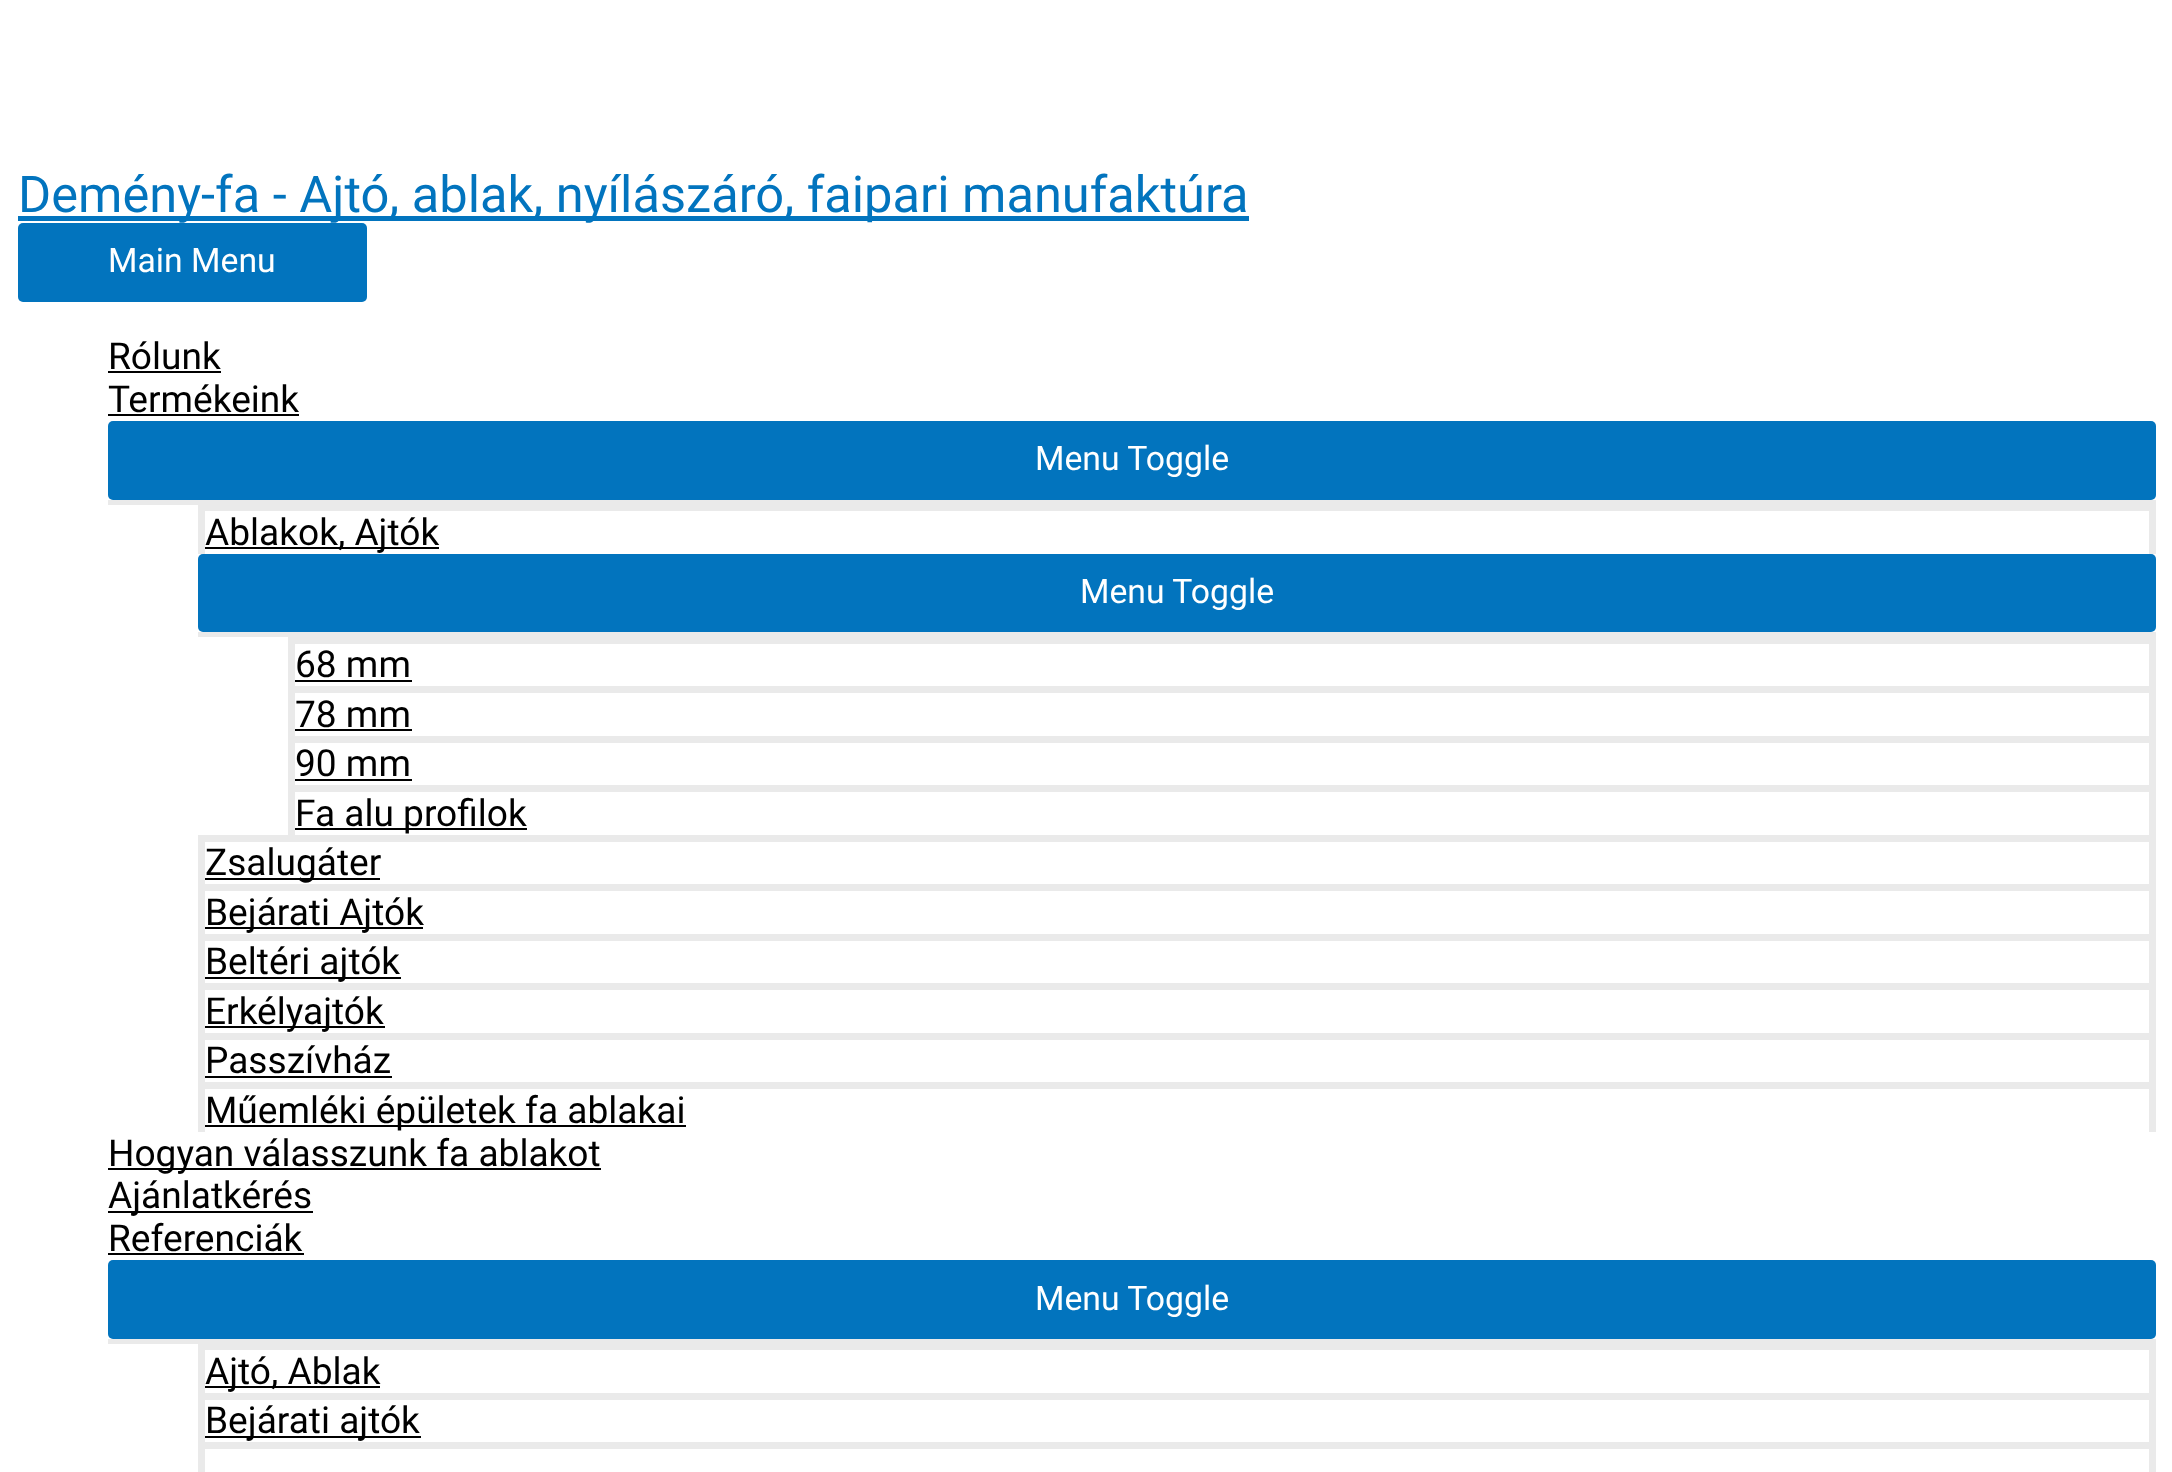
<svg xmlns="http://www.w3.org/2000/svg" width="2172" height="1472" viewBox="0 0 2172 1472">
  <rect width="100%" height="100%" fill="#fff"/>
  <path d="M18 216h1231v5H18z" fill="#0274be"/>
  <rect x="18" y="223" width="349" height="79" rx="5" fill="#0274be"/>
  <path d="M108 371h113v2H108z" fill="#000"/>
  <path d="M108 414h191v2H108z" fill="#000"/>
  <rect x="108" y="421" width="2048" height="79" rx="5" fill="#0274be"/>
  <path d="M108 500h2048v5H108z" fill="#eaeaea"/>
  <path d="M198 505h1958v6H198z" fill="#eaeaea"/>
  <path d="M2149 504h7v50H2149z" fill="#eaeaea"/>
  <path d="M198 504h7v50H198z" fill="#eaeaea"/>
  <path d="M205 547h234v2H205z" fill="#000"/>
  <rect x="198" y="554" width="1958" height="78" rx="5" fill="#0274be"/>
  <path d="M198 632h1958v5H198z" fill="#eaeaea"/>
  <path d="M288 637h1868v7H288z" fill="#eaeaea"/>
  <path d="M2149 637h7v49H2149z" fill="#eaeaea"/>
  <path d="M288 637h7v49H288z" fill="#eaeaea"/>
  <path d="M295 680h117v2H295z" fill="#000"/>
  <path d="M288 686h1868v7H288z" fill="#eaeaea"/>
  <path d="M2149 686h7v50H2149z" fill="#eaeaea"/>
  <path d="M288 686h7v50H288z" fill="#eaeaea"/>
  <path d="M295 729h117v2H295z" fill="#000"/>
  <path d="M288 736h1868v7H288z" fill="#eaeaea"/>
  <path d="M2149 736h7v49H2149z" fill="#eaeaea"/>
  <path d="M288 736h7v49H288z" fill="#eaeaea"/>
  <path d="M295 779h117v2H295z" fill="#000"/>
  <path d="M288 785h1868v7H288z" fill="#eaeaea"/>
  <path d="M2149 785h7v50H2149z" fill="#eaeaea"/>
  <path d="M288 785h7v50H288z" fill="#eaeaea"/>
  <path d="M295 828h232v2H295z" fill="#000"/>
  <path d="M198 835h1958v7H198z" fill="#eaeaea"/>
  <path d="M2149 835h7v49H2149z" fill="#eaeaea"/>
  <path d="M198 835h7v49H198z" fill="#eaeaea"/>
  <path d="M205 878h175v2H205z" fill="#000"/>
  <path d="M198 884h1958v7H198z" fill="#eaeaea"/>
  <path d="M2149 884h7v50H2149z" fill="#eaeaea"/>
  <path d="M198 884h7v50H198z" fill="#eaeaea"/>
  <path d="M205 927h218v2H205z" fill="#000"/>
  <path d="M198 934h1958v7H198z" fill="#eaeaea"/>
  <path d="M2149 934h7v49H2149z" fill="#eaeaea"/>
  <path d="M198 934h7v49H198z" fill="#eaeaea"/>
  <path d="M205 977h196v2H205z" fill="#000"/>
  <path d="M198 983h1958v7H198z" fill="#eaeaea"/>
  <path d="M2149 983h7v50H2149z" fill="#eaeaea"/>
  <path d="M198 983h7v50H198z" fill="#eaeaea"/>
  <path d="M205 1026h180v2H205z" fill="#000"/>
  <path d="M198 1033h1958v7H198z" fill="#eaeaea"/>
  <path d="M2149 1033h7v49H2149z" fill="#eaeaea"/>
  <path d="M198 1033h7v49H198z" fill="#eaeaea"/>
  <path d="M205 1076h187v2H205z" fill="#000"/>
  <path d="M198 1082h1958v7H198z" fill="#eaeaea"/>
  <path d="M2149 1082h7v50H2149z" fill="#eaeaea"/>
  <path d="M198 1082h7v50H198z" fill="#eaeaea"/>
  <path d="M205 1125h481v2H205z" fill="#000"/>
  <path d="M108 1168h493v2H108z" fill="#000"/>
  <path d="M108 1211h205v2H108z" fill="#000"/>
  <path d="M108 1253h196v2H108z" fill="#000"/>
  <rect x="108" y="1260" width="2048" height="79" rx="5" fill="#0274be"/>
  <path d="M108 1339h2048v5H108z" fill="#eaeaea"/>
  <path d="M198 1344h1958v6H198z" fill="#eaeaea"/>
  <path d="M2149 1343h7v50H2149z" fill="#eaeaea"/>
  <path d="M198 1343h7v50H198z" fill="#eaeaea"/>
  <path d="M205 1386h175v2H205z" fill="#000"/>
  <path d="M198 1393h1958v7H198z" fill="#eaeaea"/>
  <path d="M2149 1393h7v49H2149z" fill="#eaeaea"/>
  <path d="M198 1393h7v49H198z" fill="#eaeaea"/>
  <path d="M205 1436h216v2H205z" fill="#000"/>
  <path d="M198 1442h1958v7H198z" fill="#eaeaea"/>
  <path d="M2149 1442h7v30H2149z" fill="#eaeaea"/>
  <path d="M198 1442h7v30H198z" fill="#eaeaea"/>
  <text x="18" y="212" font-family="Roboto" font-size="50.6" fill="#0274be">Demény-fa - Ajtó, ablak, nyílászáró, faipari manufaktúra</text>
  <text x="108" y="272" font-family="Roboto" font-size="33.75" fill="#fff">Main Menu</text>
  <g font-family="Roboto" font-size="37.1" fill="#000">
    <text x="108" y="369">Rólunk</text>
    <text x="108" y="412">Termékeink</text>
  </g>
  <text x="1035" y="470" font-family="Roboto" font-size="33.75" fill="#fff">Menu Toggle</text>
  <text x="205" y="545" font-family="Roboto" font-size="37.1" fill="#000">Ablakok, Ajtók</text>
  <text x="1080" y="603" font-family="Roboto" font-size="33.75" fill="#fff">Menu Toggle</text>
  <g font-family="Roboto" font-size="37.1" fill="#000">
    <text x="295" y="677">68 mm</text>
    <text x="295" y="727">78 mm</text>
    <text x="295" y="776">90 mm</text>
    <text x="295" y="826">Fa alu profilok</text>
    <text x="205" y="875">Zsalugáter</text>
    <text x="205" y="925">Bejárati Ajtók</text>
    <text x="205" y="974">Beltéri ajtók</text>
    <text x="205" y="1024">Erkélyajtók</text>
    <text x="205" y="1073">Passzívház</text>
    <text x="205" y="1123">Műemléki épületek fa ablakai</text>
    <text x="108" y="1166">Hogyan válasszunk fa ablakot</text>
    <text x="108" y="1208">Ajánlatkérés</text>
    <text x="108" y="1251">Referenciák</text>
  </g>
  <text x="1035" y="1310" font-family="Roboto" font-size="33.75" fill="#fff">Menu Toggle</text>
  <g font-family="Roboto" font-size="37.1" fill="#000">
    <text x="205" y="1384">Ajtó, Ablak</text>
    <text x="205" y="1433">Bejárati ajtók</text>
  </g>
</svg>
